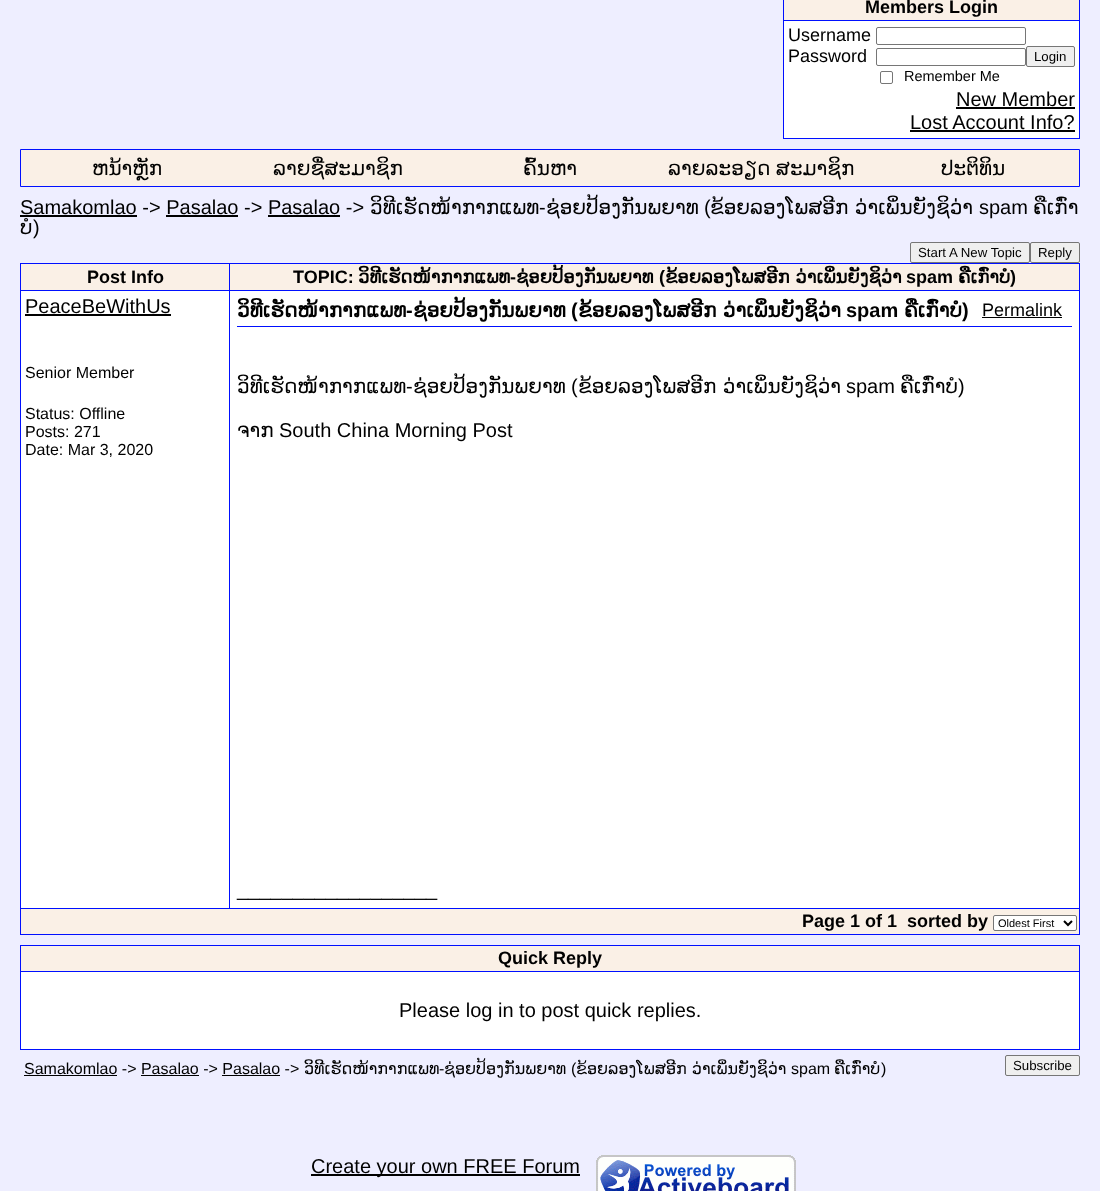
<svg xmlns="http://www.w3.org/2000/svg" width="1100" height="1191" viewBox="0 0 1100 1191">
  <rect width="100%" height="100%" fill="#eef"/>
  <path d="M1079 0h1v139H1079z" fill="#000fff"/>
  <path d="M783 138h297v1H783z" fill="#000fff"/>
  <path d="M783 0h1v139H783z" fill="#000fff"/>
  <path d="M784 0h295v20H784z" fill="#faf0e6"/>
  <path d="M783 20h297v1H783z" fill="#000fff"/>
  <path d="M784 21h295v117H784z" fill="#fff"/>
  <rect x="876.5" y="27.5" width="149" height="17" rx="1.5" fill="none" stroke="#767676"/>
  <rect x="876.5" y="48.5" width="149" height="17" rx="1.5" fill="none" stroke="#767676"/>
  <rect x="1026.5" y="46.5" width="48" height="20" rx="1.5" fill="#efefef" stroke="#767676"/>
  <rect x="880.5" y="71.5" width="12" height="12" rx="1.5" fill="none" stroke="#767676"/>
  <path d="M956 107h119v2H956z" fill="#000"/>
  <path d="M910 130h165v2H910z" fill="#000"/>
  <path d="M20.5 149.5h1059v37H20.5z" fill="none" stroke="#000fff"/>
  <path d="M21 150h1058v36H21z" fill="#faf0e6"/>
  <path d="M20 215h117v2H20z" fill="#000"/>
  <path d="M166 215h72v2H166z" fill="#000"/>
  <path d="M268 215h72v2H268z" fill="#000"/>
  <rect x="910.5" y="242.5" width="119" height="20" rx="1.5" fill="#efefef" stroke="#767676"/>
  <rect x="1030.5" y="242.5" width="49" height="20" rx="1.5" fill="#efefef" stroke="#767676"/>
  <path d="M20 263h1060v1H20z" fill="#000fff"/>
  <path d="M1079 263h1v672H1079z" fill="#000fff"/>
  <path d="M20 934h1060v1H20z" fill="#000fff"/>
  <path d="M20 263h1v672H20z" fill="#000fff"/>
  <path d="M21 264h208v26H21z" fill="#faf0e6"/>
  <path d="M229 290h851v1H229z" fill="#000fff"/>
  <path d="M20 908h1060v1H20z" fill="#000fff"/>
  <path d="M229 290h1v619H229z" fill="#000fff"/>
  <path d="M20 290h210v1H20z" fill="#000fff"/>
  <path d="M229 263h1v28H229z" fill="#000fff"/>
  <path d="M230 264h849v26H230z" fill="#faf0e6"/>
  <path d="M21 291h208v617H21z" fill="#fff"/>
  <path d="M25 314h146v2H25z" fill="#000"/>
  <path d="M230 291h849v617H230z" fill="#fff"/>
  <path d="M982 317h80v1H982z" fill="#000"/>
  <path d="M237 326h835v1H237z" fill="#000fff"/>
  <path d="M21 909h1058v25H21z" fill="#faf0e6"/>
  <rect x="993.5" y="915.5" width="83" height="15" rx="1.5" fill="#fff" stroke="#767676"/>
  <path d="M1064 921L1068 925L1072 921" fill="none" stroke="#000" stroke-width="2"/>
  <path d="M20 945h1060v1H20z" fill="#000fff"/>
  <path d="M1079 945h1v105H1079z" fill="#000fff"/>
  <path d="M20 1049h1060v1H20z" fill="#000fff"/>
  <path d="M20 945h1v105H20z" fill="#000fff"/>
  <path d="M21 946h1058v25H21z" fill="#faf0e6"/>
  <path d="M20 971h1060v1H20z" fill="#000fff"/>
  <path d="M21 972h1058v77H21z" fill="#fff"/>
  <path d="M24 1075h93v1H24z" fill="#000"/>
  <path d="M141 1075h58v1H141z" fill="#000"/>
  <path d="M222 1075h58v1H222z" fill="#000"/>
  <rect x="1005.5" y="1055.5" width="74" height="20" rx="1.5" fill="#efefef" stroke="#767676"/>
  <path d="M311 1174h269v2H311z" fill="#000"/>
  <image x="596" y="1155" width="200" height="36" href="img/1.png"/>
  <text x="865" y="13" font-family="Liberation Sans" font-size="18" font-weight="bold" fill="#000">Members Login</text>
  <g font-family="Liberation Sans" font-size="18" fill="#000">
    <text x="788" y="41">Username</text>
    <text x="788" y="62">Password</text>
  </g>
  <text x="1034" y="61" font-family="Liberation Sans" font-size="13.25" fill="#000">Login</text>
  <text x="904" y="81" font-family="Liberation Sans" font-size="14.5" fill="#000">Remember Me</text>
  <g font-family="Liberation Sans" font-size="20" fill="#000">
    <text x="956" y="106">New Member</text>
    <text x="910" y="129">Lost Account Info?</text>
  </g>
  <g font-family="DejaVu Sans" font-size="20" fill="#000">
    <text x="92" y="175">ຫນ້າຫຼັກ</text>
    <text x="273" y="175">ລາຍຊື່ສະມາຊິກ</text>
    <text x="523" y="175">ຄົ້ນຫາ</text>
    <text x="668" y="175" word-spacing="-1">ລາຍລະອຽດ ສະມາຊິກ</text>
    <text x="941" y="175">ປະຕິທິນ</text>
  </g>
  <text x="20" y="214" font-family="Liberation Sans" font-size="20" fill="#000">Samakomlao -&gt; Pasalao -&gt; Pasalao -&gt;</text>
  <text x="370" y="214" font-family="DejaVu Sans" font-size="20" fill="#000">ວິທີເຮັດໜ້າກາກແພທ</text>
  <text x="539" y="214" font-family="Liberation Sans" font-size="20" fill="#000">-</text>
  <text x="546" y="214" font-family="DejaVu Sans" font-size="20" fill="#000">ຊ່ອຍປ້ອງກັນພຍາທ</text>
  <text x="704" y="214" font-family="Liberation Sans" font-size="20" fill="#000">(</text>
  <text x="710" y="214" font-family="DejaVu Sans" font-size="20" fill="#000">ຂ້ອຍລອງໂພສອີກ ວ່າເພິ່ນຍັງຊິວ່າ</text>
  <text x="979" y="214" font-family="Liberation Sans" font-size="20" fill="#000">spam</text>
  <g font-family="DejaVu Sans" font-size="20" fill="#000">
    <text x="1033" y="214">ຄືເກົ່າ</text>
    <text x="20" y="234">ບໍ</text>
  </g>
  <text x="33" y="234" font-family="Liberation Sans" font-size="20" fill="#000">)</text>
  <g font-family="Liberation Sans" font-size="13.25" fill="#000">
    <text x="918" y="257">Start A New Topic</text>
    <text x="1038" y="257">Reply</text>
  </g>
  <g font-family="Liberation Sans" font-size="18" font-weight="bold" fill="#000">
    <text x="87" y="283">Post Info</text>
    <text x="293" y="283">TOPIC:</text>
  </g>
  <text x="358" y="283" font-family="DejaVu Sans" font-size="18" font-weight="bold" fill="#000">ວິທີເຮັດໜ້າກາກແພທ</text>
  <text x="510" y="283" font-family="Liberation Sans" font-size="18" font-weight="bold" fill="#000">-</text>
  <text x="516" y="283" font-family="DejaVu Sans" font-size="18" font-weight="bold" fill="#000">ຊ່ອຍປ້ອງກັນພຍາທ</text>
  <text x="659" y="283" font-family="Liberation Sans" font-size="18" font-weight="bold" fill="#000">(</text>
  <text x="665" y="283" font-family="DejaVu Sans" font-size="18" font-weight="bold" fill="#000">ຂ້ອຍລອງໂພສອີກ ວ່າເພິ່ນຍັງຊິວ່າ</text>
  <text x="906" y="283" font-family="Liberation Sans" font-size="18" font-weight="bold" fill="#000">spam</text>
  <text x="958" y="283" font-family="DejaVu Sans" font-size="18" font-weight="bold" fill="#000">ຄືເກົ່າບໍ</text>
  <text x="1010" y="283" font-family="Liberation Sans" font-size="18" font-weight="bold" fill="#000">)</text>
  <text x="25" y="313" font-family="Liberation Sans" font-size="20" fill="#000">PeaceBeWithUs</text>
  <g font-family="Liberation Sans" font-size="16" fill="#000">
    <text x="25" y="378">Senior Member</text>
    <text x="25" y="419">Status: Offline</text>
    <text x="25" y="437">Posts: 271</text>
    <text x="25" y="455">Date: Mar 3, 2020</text>
  </g>
  <text x="237" y="317" font-family="DejaVu Sans" font-size="20" font-weight="bold" fill="#000">ວິທີເຮັດໜ້າກາກແພທ</text>
  <text x="406" y="317" font-family="Liberation Sans" font-size="20" font-weight="bold" fill="#000">-</text>
  <text x="413" y="317" font-family="DejaVu Sans" font-size="20" font-weight="bold" fill="#000">ຊ່ອຍປ້ອງກັນພຍາທ</text>
  <text x="571" y="317" font-family="Liberation Sans" font-size="20" font-weight="bold" fill="#000">(</text>
  <text x="578" y="317" font-family="DejaVu Sans" font-size="20" font-weight="bold" fill="#000">ຂ້ອຍລອງໂພສອີກ ວ່າເພິ່ນຍັງຊິວ່າ</text>
  <text x="846" y="317" font-family="Liberation Sans" font-size="20" font-weight="bold" fill="#000">spam</text>
  <text x="904" y="317" font-family="DejaVu Sans" font-size="20" font-weight="bold" fill="#000">ຄືເກົ່າບໍ</text>
  <text x="962" y="317" font-family="Liberation Sans" font-size="20" font-weight="bold" fill="#000">)</text>
  <text x="982" y="316" font-family="Liberation Sans" font-size="18" fill="#000">Permalink</text>
  <text x="237" y="393" font-family="DejaVu Sans" font-size="20" fill="#000">ວິທີເຮັດໜ້າກາກແພທ</text>
  <text x="406" y="393" font-family="Liberation Sans" font-size="20" fill="#000">-</text>
  <text x="413" y="393" font-family="DejaVu Sans" font-size="20" fill="#000">ຊ່ອຍປ້ອງກັນພຍາທ</text>
  <text x="571" y="393" font-family="Liberation Sans" font-size="20" fill="#000">(</text>
  <text x="578" y="393" font-family="DejaVu Sans" font-size="20" fill="#000">ຂ້ອຍລອງໂພສອີກ ວ່າເພິ່ນຍັງຊິວ່າ</text>
  <text x="846" y="393" font-family="Liberation Sans" font-size="20" fill="#000">spam</text>
  <text x="900" y="393" font-family="DejaVu Sans" font-size="20" fill="#000">ຄືເກົ່າບໍ</text>
  <text x="958" y="393" font-family="Liberation Sans" font-size="20" fill="#000">)</text>
  <text x="237" y="437" font-family="DejaVu Sans" font-size="20" fill="#000">ຈາກ</text>
  <g font-family="Liberation Sans" font-size="20" fill="#000">
    <text x="279" y="437">South China Morning Post</text>
    <text x="237" y="896">__________________</text>
  </g>
  <g font-family="Liberation Sans" font-size="18" font-weight="bold" fill="#000">
    <text x="802" y="927">Page 1 of 1</text>
    <text x="907" y="927">sorted by</text>
  </g>
  <text x="998" y="927" font-family="Liberation Sans" font-size="11" fill="#000">Oldest First</text>
  <text x="498" y="964" font-family="Liberation Sans" font-size="18" font-weight="bold" fill="#000">Quick Reply</text>
  <text x="399" y="1017" font-family="Liberation Sans" font-size="20" fill="#000">Please log in to post quick replies.</text>
  <text x="24" y="1074" font-family="Liberation Sans" font-size="16" fill="#000">Samakomlao -&gt; Pasalao -&gt; Pasalao -&gt;</text>
  <text x="304" y="1074" font-family="DejaVu Sans" font-size="16" fill="#000">ວິທີເຮັດໜ້າກາກແພທ</text>
  <text x="439" y="1074" font-family="Liberation Sans" font-size="16" fill="#000">-</text>
  <text x="444" y="1074" font-family="DejaVu Sans" font-size="16" fill="#000">ຊ່ອຍປ້ອງກັນພຍາທ</text>
  <text x="571" y="1074" font-family="Liberation Sans" font-size="16" fill="#000">(</text>
  <text x="576" y="1074" font-family="DejaVu Sans" font-size="16" fill="#000">ຂ້ອຍລອງໂພສອີກ ວ່າເພິ່ນຍັງຊິວ່າ</text>
  <text x="791" y="1074" font-family="Liberation Sans" font-size="16" fill="#000">spam</text>
  <text x="834" y="1074" font-family="DejaVu Sans" font-size="16" fill="#000">ຄືເກົ່າບໍ</text>
  <text x="881" y="1074" font-family="Liberation Sans" font-size="16" fill="#000">)</text>
  <text x="1013" y="1070" font-family="Liberation Sans" font-size="13.25" fill="#000">Subscribe</text>
  <text x="311" y="1173" font-family="Liberation Sans" font-size="20" fill="#000">Create your own FREE Forum</text>
</svg>
